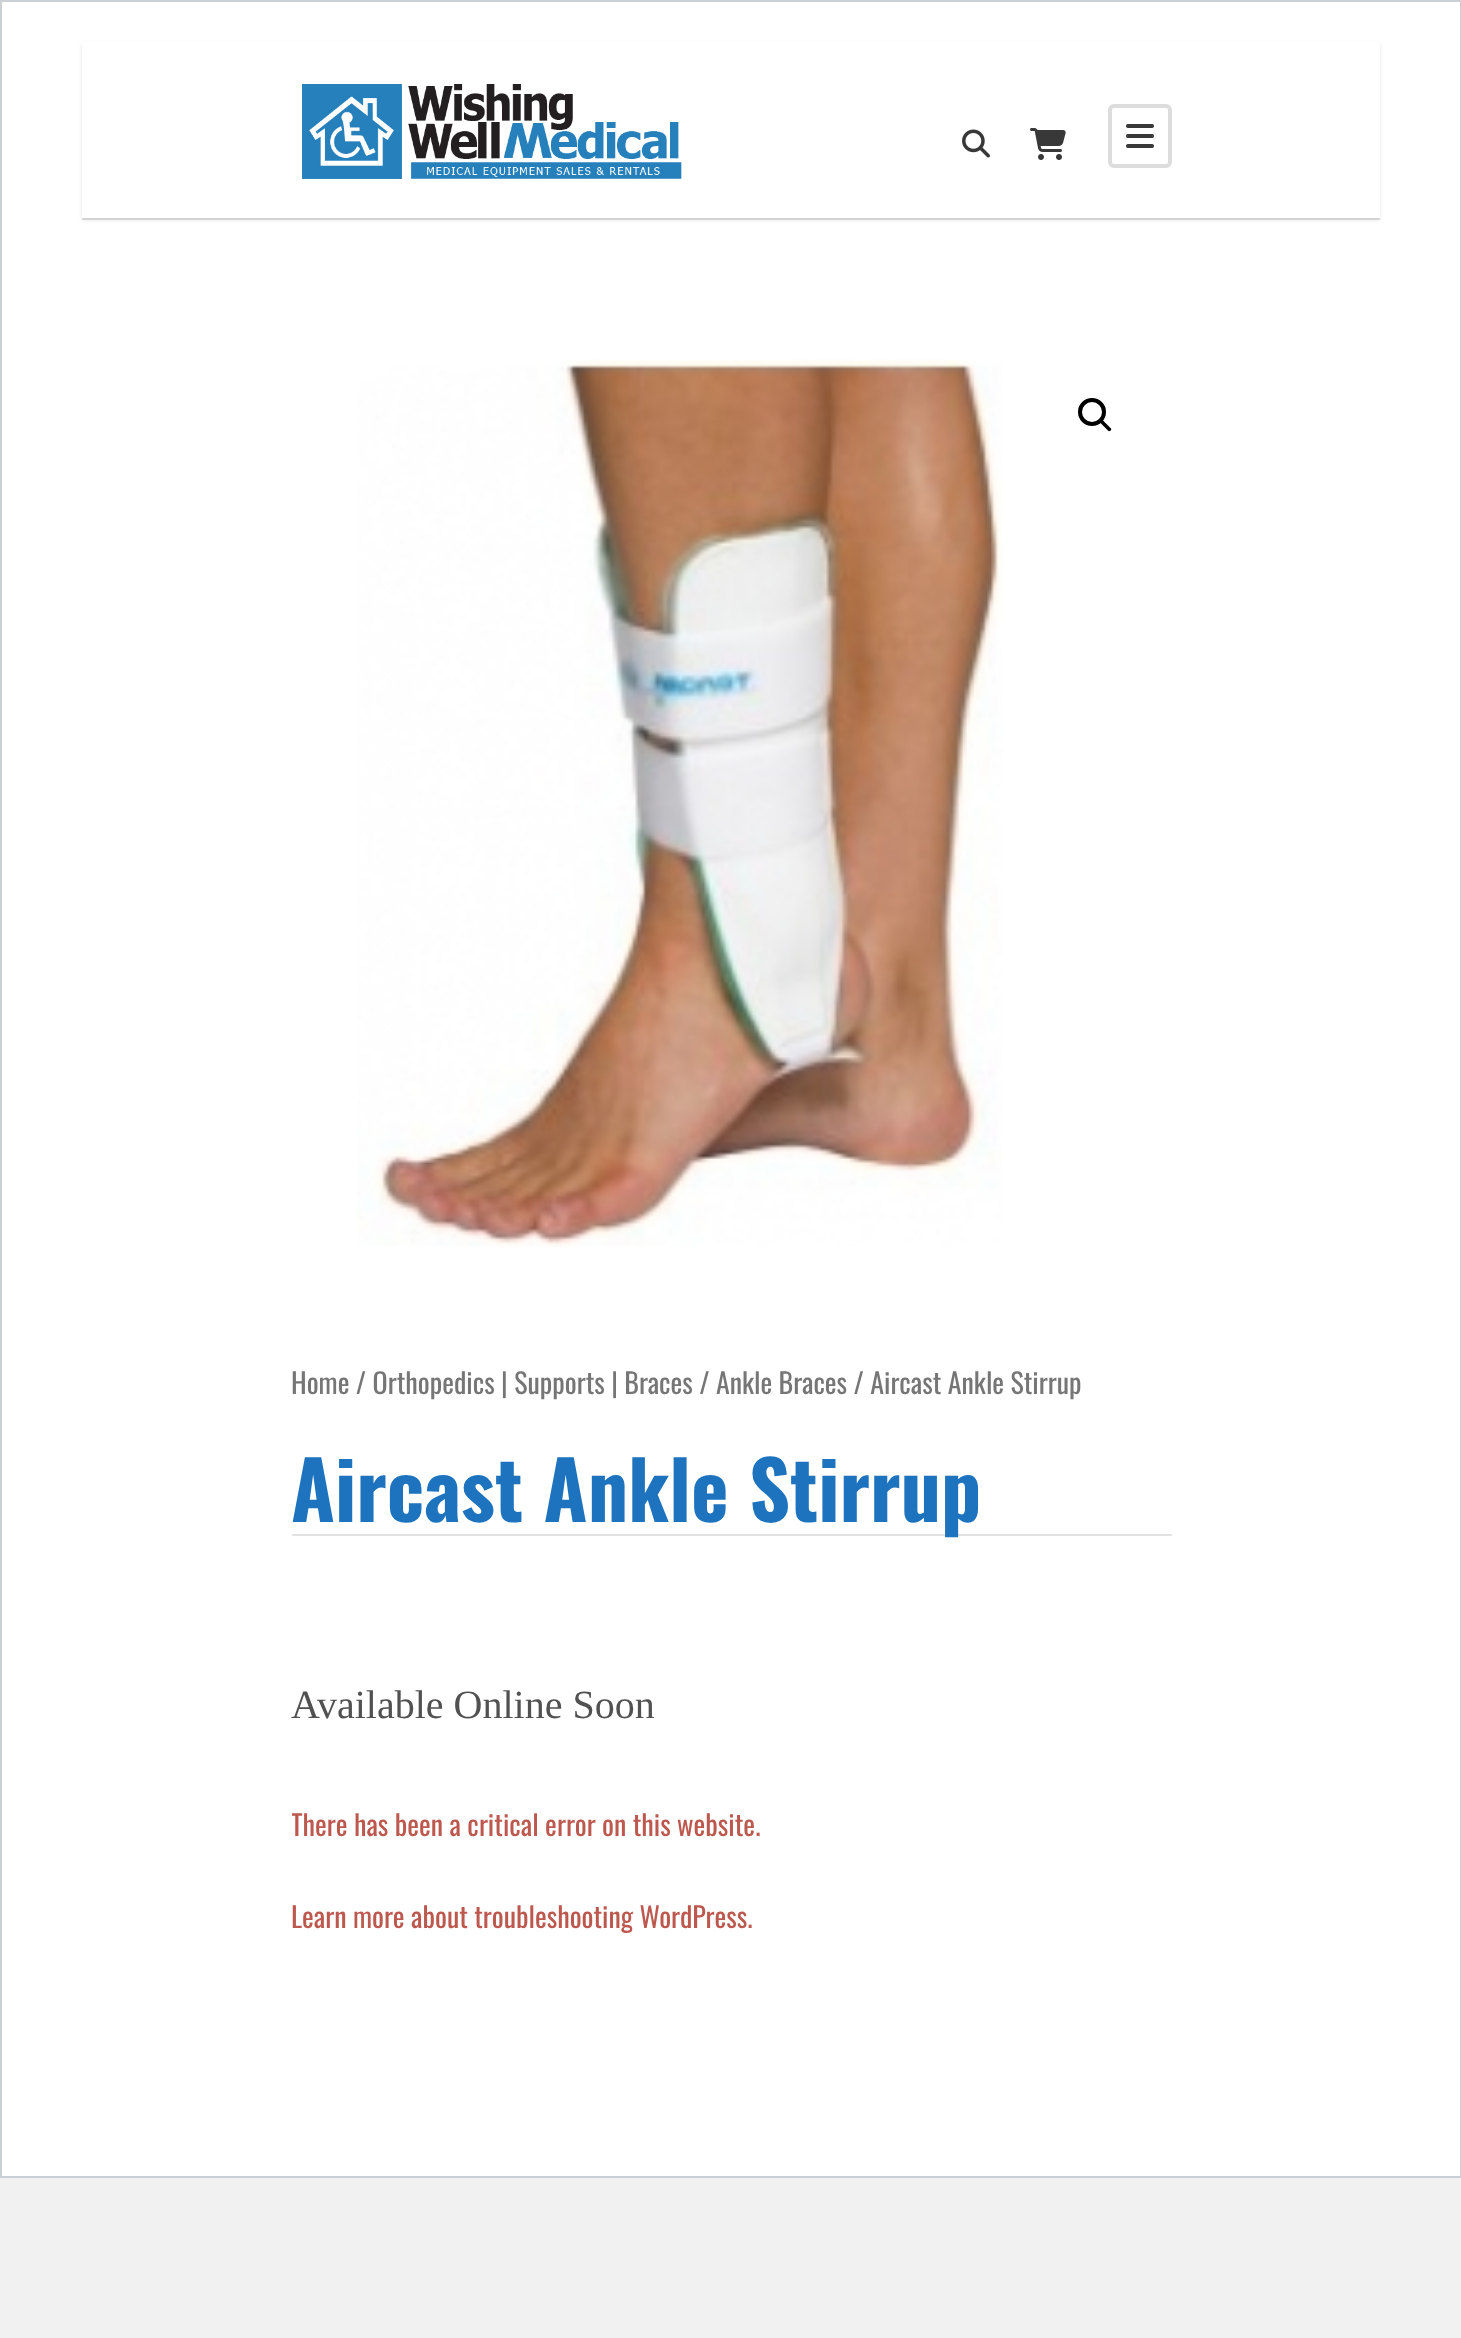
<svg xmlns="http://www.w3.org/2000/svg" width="1461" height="2338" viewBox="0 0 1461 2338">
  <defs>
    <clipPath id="clip1"><path d="M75 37H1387V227H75ZM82 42H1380V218H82Z" clip-rule="evenodd"/></clipPath>
    <clipPath id="clip2"><path d="M292 1742h880v234H292z"/></clipPath>
  </defs>
  <rect width="100%" height="100%" fill="#f1f1f1"/>
  <path d="M1 1h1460v2176H1z" fill="#fff" stroke="#ccd0d4" stroke-width="2"/>
  <path d="M82 218h1298v2H82z" fill="#e2e2e2"/>
  <g clip-path="url(#clip1)">
    <path d="M82 44h1298v176H82z" fill="#0000001a" filter="blur(2px)"/>
  </g>
  <image x="302" y="84" width="380" height="95" href="img/1.png"/>
  <image x="962" y="129" width="28" height="29" href="img/2.png"/>
  <image x="1030" y="128" width="36" height="32" href="img/3.png"/>
  <rect x="1110" y="106" width="60" height="60" rx="4" fill="none" stroke="#ddd" stroke-width="4"/>
  <image x="1126" y="124" width="28" height="24" href="img/4.png"/>
  <image x="357" y="359" width="646" height="888" href="img/5.png"/>
  <circle cx="1092" cy="412" r="12" fill="none" stroke="#000" stroke-width="4"/>
  <path d="M1099.5 419.5C1100 418.5 1101.5 418.5 1102 419.5L1110.5 428C1111.5 428.5 1111.5 430 1110.5 430.5C1110 431.5 1108.5 431.5 1108 430.5L1099.5 422C1098.5 421.5 1098.5 420 1099.5 419.5Z" fill="#000"/>
  <path d="M292 1534h880v2H292z" fill="#e2e2e2"/>
  <text x="291" y="1394" font-family="Oswald" font-size="28" fill="#767676">Home / Orthopedics | Supports | Braces / Ankle Braces / Aircast Ankle Stirrup</text>
  <text x="291" y="1522" font-family="Oswald" font-size="80" font-weight="bold" fill="#1e73be">Aircast Ankle Stirrup</text>
  <text x="291" y="1718" font-family="Liberation Serif" font-size="40" fill="#515151">Available Online Soon</text>
  <g clip-path="url(#clip2)">
    <text x="291" y="1836" font-family="Oswald" font-size="28" fill="#bd584e">There has been a critical error on this website.</text>
  </g>
  <text x="291" y="1928" font-family="Oswald" font-size="28" fill="#bd584e">Learn more about troubleshooting WordPress.</text>
</svg>
